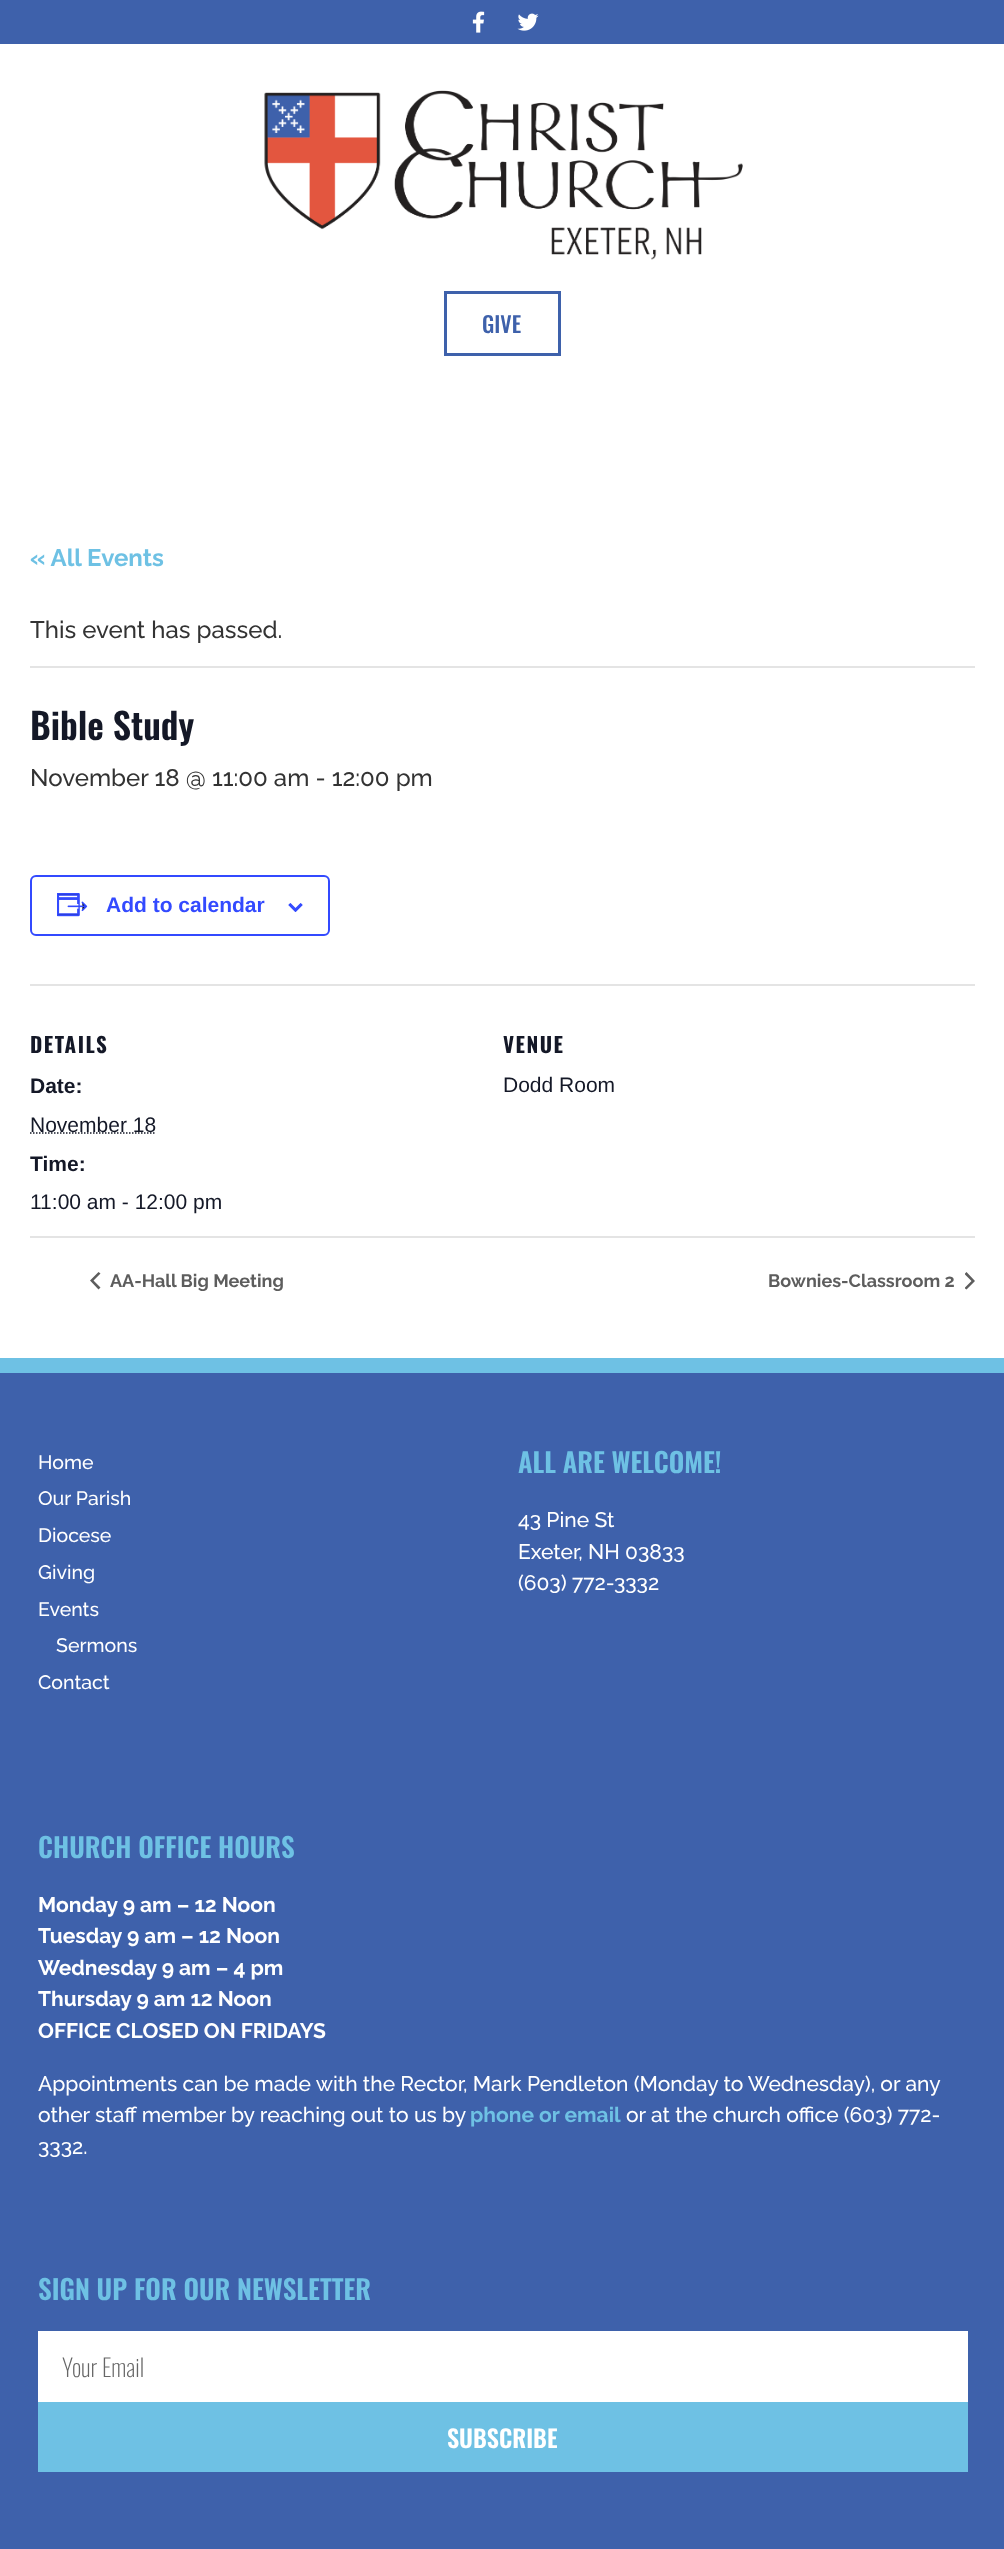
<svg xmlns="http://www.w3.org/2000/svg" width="1004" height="2549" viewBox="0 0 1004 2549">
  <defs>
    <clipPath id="clip1"><path d="M965 1272h10v18H965z"/></clipPath>
  </defs>
  <rect width="100%" height="100%" fill="#fff"/>
  <path d="M0 0h1004v44H0z" fill="#3e61ab"/>
  <image x="472" y="11" width="13" height="22" href="img/1.png"/>
  <image x="517" y="13" width="22" height="18" href="img/2.png"/>
  <image x="264" y="90" width="479" height="170" href="img/3.png"/>
  <path d="M445.5 292.5h114v62H445.5z" fill="none" stroke="#3e61ab" stroke-width="3"/>
  <path d="M30 666h945v2H30z" fill="#e4e4e4"/>
  <rect x="31" y="876" width="298" height="59" rx="5" fill="none" stroke="#334aff" stroke-width="2"/>
  <image x="57" y="893" width="31" height="24" href="img/4.png"/>
  <image x="288" y="903" width="15" height="9" href="img/5.png"/>
  <path d="M30 984h945v2H30z" fill="#e4e4e4"/>
  <path d="M30 1133H156" fill="none" stroke="#141827" stroke-width="1.5" stroke-dasharray="1.5 1.5"/>
  <path d="M30 1236h945v2H30z" fill="#e4e4e4"/>
  <path d="M100.5 1287.5L98.5 1289.5L90 1280.5L98.5 1272L100.5 1273.5L93.5 1280.5Z" fill="#5d5d5d"/>
  <g clip-path="url(#clip1)">
    <path d="M964.5 1274L966.5 1272L975 1281L966.5 1289.5L964.5 1288L971.5 1281Z" fill="#5d5d5d"/>
  </g>
  <path d="M0 1373h1004v1176H0z" fill="#3e61ab"/>
  <path d="M0 1358h1004v15H0z" fill="#6ec1e4"/>
  <path d="M38 2331h930v71H38z" fill="#fff"/>
  <path d="M38 2402h930v70H38z" fill="#6ec1e4"/>
  <text x="482" y="333" font-family="Oswald" font-size="22" font-weight="500" fill="#3e61ab">GIVE</text>
  <text x="30" y="566" font-family="Raleway" font-size="24" font-weight="bold" fill="#6ec1e4">« All Events</text>
  <text x="30" y="638" font-family="Raleway" font-size="24" font-weight="500" fill="#333">This event has passed.</text>
  <text x="30" y="740" font-family="Oswald" font-size="36" font-weight="600" fill="#141827">Bible Study</text>
  <text x="30" y="786" font-family="Raleway" font-size="24" font-weight="500" fill="#333">November 18 @ 11:00 am - 12:00 pm</text>
  <text x="106" y="912" font-family="Liberation Sans" font-size="21" font-weight="bold" fill="#334aff">Add to calendar</text>
  <text x="30" y="1053" font-family="Oswald" font-size="21" font-weight="bold" letter-spacing="1.5" fill="#141827">DETAILS</text>
  <text x="30" y="1093" font-family="Liberation Sans" font-size="21" font-weight="bold" fill="#141827">Date:</text>
  <text x="30" y="1132" font-family="Liberation Sans" font-size="21" fill="#141827">November 18</text>
  <text x="30" y="1171" font-family="Liberation Sans" font-size="21" font-weight="bold" fill="#141827">Time:</text>
  <text x="30" y="1209" font-family="Liberation Sans" font-size="21" fill="#141827">11:00 am - 12:00 pm</text>
  <text x="503" y="1053" font-family="Oswald" font-size="21" font-weight="bold" letter-spacing="1.5" fill="#141827">VENUE</text>
  <text x="503" y="1092" font-family="Liberation Sans" font-size="21" fill="#141827">Dodd Room</text>
  <g font-family="Raleway" font-size="18" font-weight="bold" fill="#5d5d5d">
    <text x="110" y="1287">AA-Hall Big Meeting</text>
    <text x="768" y="1287">Bownies-Classroom 2</text>
  </g>
  <g font-family="Raleway" font-size="19.5" font-weight="500" fill="#fff">
    <text x="38" y="1469">Home</text>
    <text x="38" y="1505">Our Parish</text>
    <text x="38" y="1542">Diocese</text>
    <text x="38" y="1579">Giving</text>
    <text x="38" y="1616">Events</text>
    <text x="56" y="1652">Sermons</text>
    <text x="38" y="1689">Contact</text>
  </g>
  <text x="518" y="1473" font-family="Oswald" font-size="27" font-weight="600" fill="#6ec1e4">ALL ARE WELCOME!</text>
  <g font-family="Raleway" font-size="21" font-weight="500" fill="#fff">
    <text x="518" y="1527">43 Pine St</text>
    <text x="518" y="1559">Exeter, NH 03833</text>
    <text x="518" y="1590">(603) 772-3332</text>
  </g>
  <text x="38" y="1858" font-family="Oswald" font-size="27" font-weight="600" fill="#6ec1e4">CHURCH OFFICE HOURS</text>
  <g font-family="Raleway" font-size="21" font-weight="bold" fill="#fff">
    <text x="38" y="1912">Monday 9 am – 12 Noon</text>
    <text x="38" y="1943">Tuesday 9 am – 12 Noon</text>
    <text x="38" y="1975">Wednesday 9 am – 4 pm</text>
    <text x="38" y="2006">Thursday 9 am 12 Noon</text>
    <text x="38" y="2038">OFFICE CLOSED ON FRIDAYS</text>
  </g>
  <g font-family="Raleway" font-size="21" font-weight="500" fill="#fff">
    <text x="38" y="2091">Appointments can be made with the Rector, Mark Pendleton (Monday to Wednesday), or any</text>
    <text x="38" y="2122">other staff member by reaching out to us by</text>
  </g>
  <text x="470" y="2122" font-family="Raleway" font-size="21" font-weight="bold" fill="#6ec1e4">phone or email</text>
  <g font-family="Raleway" font-size="21" font-weight="500" fill="#fff">
    <text x="626" y="2122">or at the church office (603) 772-</text>
    <text x="38" y="2154">3332.</text>
  </g>
  <text x="38" y="2300" font-family="Oswald" font-size="27" font-weight="600" fill="#6ec1e4">SIGN UP FOR OUR NEWSLETTER</text>
  <text x="62" y="2377" font-family="Oswald" font-size="24" font-weight="200" fill="#666">Your Email</text>
  <text x="447" y="2448" font-family="Oswald" font-size="24" font-weight="600" fill="#fff">SUBSCRIBE</text>
</svg>
